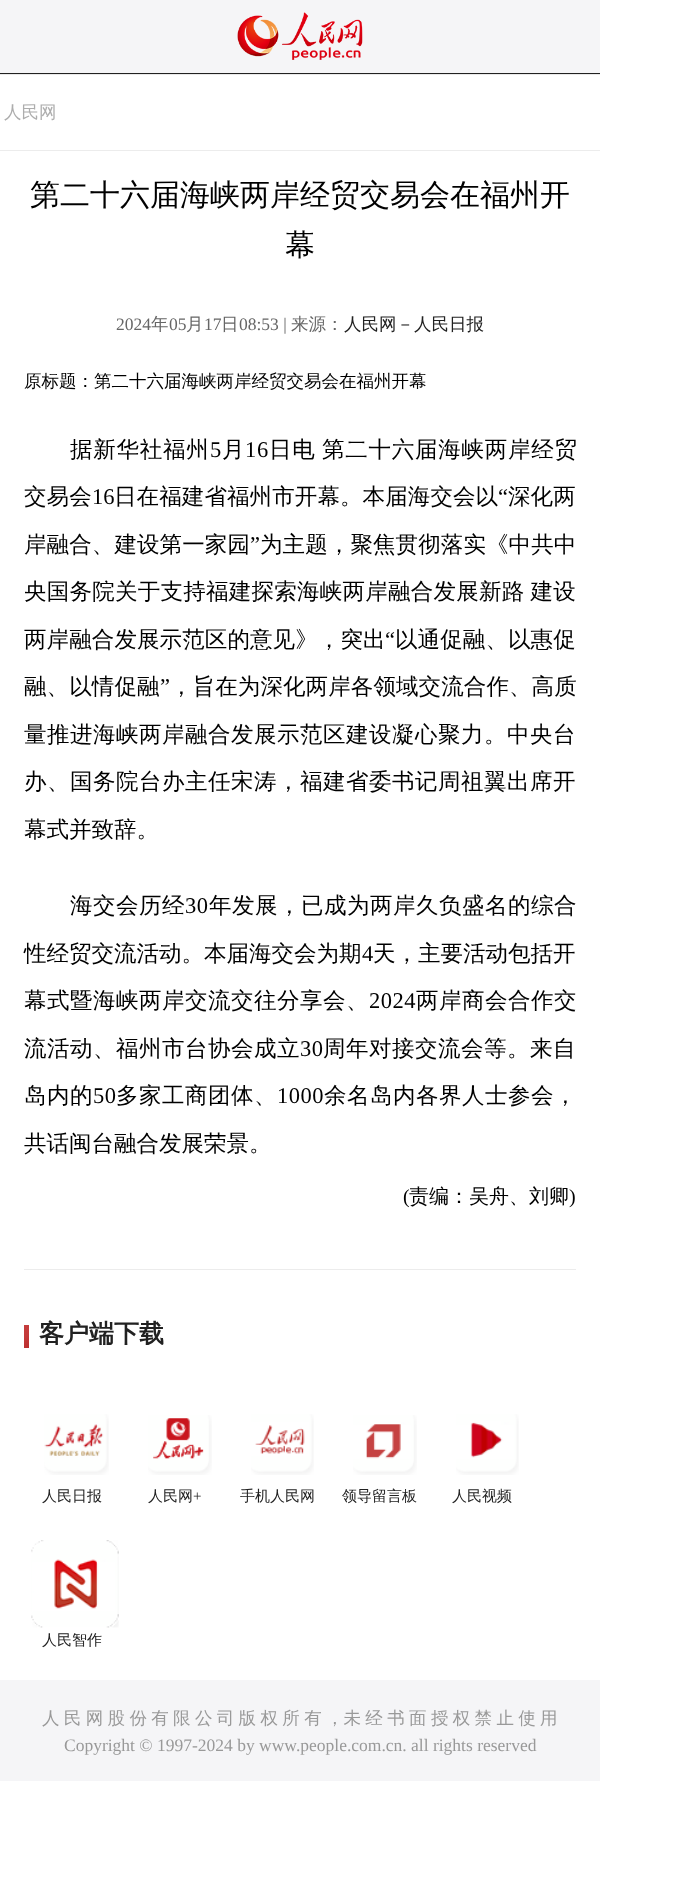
<svg xmlns="http://www.w3.org/2000/svg" width="688" height="1886" viewBox="0 0 688 1886">
  <defs>
    <linearGradient id="g1" gradientUnits="userSpaceOnUse" x1="19" y1="1329" x2="33" y2="1343"><stop offset="0" stop-color="#c53d3d"/><stop offset="0.49" stop-color="#c43a3a"/><stop offset="1" stop-color="#bb2d2d"/></linearGradient>
  </defs>
  <rect width="100%" height="100%" fill="#fff"/>
  <path d="M0 0h600v73H0z" fill="#f5f5f7"/>
  <path d="M0 73h600v1H0z" fill="#212121"/>
  <image x="237" y="12" width="126" height="48" href="img/1.png"/>
  <path d="M0 74h600v1H0z" fill="#e9e9e9"/>
  <path d="M0 150h600v1H0z" fill="#ececec"/>
  <path d="M24 1269h552v1H24z" fill="#ececec"/>
  <path d="M24 1325h5v23H24z" fill="url(#g1)"/>
  <image x="44" y="1414" width="65" height="61" href="img/2.png"/>
  <image x="148" y="1415" width="64" height="60" href="img/3.png"/>
  <image x="251" y="1414" width="63" height="61" href="img/4.png"/>
  <image x="353" y="1415" width="64" height="60" href="img/5.png"/>
  <image x="456" y="1414" width="63" height="61" href="img/6.png"/>
  <image x="31" y="1540" width="88" height="88" href="img/7.png"/>
  <path d="M0 1680h600v101H0z" fill="#f5f5f7"/>
  <text x="4" y="118" font-family="WenQuanYi Zen Hei" font-size="17.5" font-weight="500" fill="#adadad">人民网</text>
  <g font-family="WenQuanYi Zen Hei" font-size="30" font-weight="500" fill="#000">
    <text x="30" y="205">第二十六届海峡两岸经贸交易会在福州开</text>
    <text x="285" y="255">幕</text>
  </g>
  <text x="116" y="330" font-family="Liberation Serif" font-size="17.5" fill="#666">2024</text>
  <text x="151" y="330" font-family="WenQuanYi Zen Hei" font-size="17.5" font-weight="500" fill="#666">年</text>
  <text x="169" y="330" font-family="Liberation Serif" font-size="17.5" fill="#666">05</text>
  <text x="186" y="330" font-family="WenQuanYi Zen Hei" font-size="17.5" font-weight="500" fill="#666">月</text>
  <text x="204" y="330" font-family="Liberation Serif" font-size="17.5" fill="#666">17</text>
  <text x="221" y="330" font-family="WenQuanYi Zen Hei" font-size="17.5" font-weight="500" fill="#666">日</text>
  <text x="239" y="330" font-family="Liberation Serif" font-size="17.5" fill="#666">08:53 |</text>
  <text x="291" y="330" font-family="WenQuanYi Zen Hei" font-size="17.5" font-weight="500" fill="#666">来源：</text>
  <text x="344" y="330" font-family="WenQuanYi Zen Hei" font-size="17.5" font-weight="500" fill="#212121">人民网－人民日报</text>
  <text x="24" y="387" font-family="WenQuanYi Zen Hei" font-size="17.5" font-weight="500" fill="#000">原标题：第二十六届海峡两岸经贸交易会在福州开幕</text>
  <text x="70" y="457" font-family="WenQuanYi Zen Hei" font-size="22.5" font-weight="500" letter-spacing="0.75" fill="#000">据新华社福州</text>
  <text x="210" y="457" font-family="Liberation Serif" font-size="22.5" letter-spacing="0.75" fill="#000">5</text>
  <text x="222" y="457" font-family="WenQuanYi Zen Hei" font-size="22.5" font-weight="500" letter-spacing="0.75" fill="#000">月</text>
  <text x="245" y="457" font-family="Liberation Serif" font-size="22.5" letter-spacing="0.75" fill="#000">16</text>
  <text x="269" y="457" word-spacing="-1" font-family="WenQuanYi Zen Hei" font-size="22.5" font-weight="500" letter-spacing="0.75" fill="#000">日电 第二十六届海峡两岸经贸</text>
  <text x="24" y="504" font-family="WenQuanYi Zen Hei" font-size="22.5" font-weight="500" letter-spacing="0.1" fill="#000">交易会</text>
  <text x="92" y="504" font-family="Liberation Serif" font-size="22.5" letter-spacing="0.1" fill="#000">16</text>
  <text x="114" y="504" font-family="WenQuanYi Zen Hei" font-size="22.5" font-weight="500" letter-spacing="0.1" fill="#000">日在福建省福州市开幕。本届海交会以</text>
  <text x="498" y="504" font-family="Liberation Serif" font-size="22.5" letter-spacing="0.1" fill="#000">“</text>
  <g font-family="WenQuanYi Zen Hei" font-size="22.5" font-weight="500" letter-spacing="0.1" fill="#000">
    <text x="508" y="504">深化两</text>
    <text x="24" y="552">岸融合、建设第一家园</text>
  </g>
  <text x="250" y="552" font-family="Liberation Serif" font-size="22.5" letter-spacing="0.1" fill="#000">”</text>
  <text x="260" y="552" font-family="WenQuanYi Zen Hei" font-size="22.5" font-weight="500" letter-spacing="0.1" fill="#000">为主题，聚焦贯彻落实《中共中</text>
  <text x="24" y="599" word-spacing="-1" font-family="WenQuanYi Zen Hei" font-size="22.5" font-weight="500" letter-spacing="0.25" fill="#000">央国务院关于支持福建探索海峡两岸融合发展新路 建设</text>
  <text x="24" y="647" font-family="WenQuanYi Zen Hei" font-size="22.5" font-weight="500" letter-spacing="0.1" fill="#000">两岸融合发展示范区的意见》，突出</text>
  <text x="385" y="647" font-family="Liberation Serif" font-size="22.5" letter-spacing="0.1" fill="#000">“</text>
  <g font-family="WenQuanYi Zen Hei" font-size="22.5" font-weight="500" letter-spacing="0.1" fill="#000">
    <text x="395" y="647">以通促融、以惠促</text>
    <text x="24" y="694">融、以情促融</text>
  </g>
  <text x="160" y="694" font-family="Liberation Serif" font-size="22.5" letter-spacing="0.1" fill="#000">”</text>
  <text x="170" y="694" font-family="WenQuanYi Zen Hei" font-size="22.5" font-weight="500" letter-spacing="0.1" fill="#000">，旨在为深化两岸各领域交流合作、高质</text>
  <g font-family="WenQuanYi Zen Hei" font-size="22.5" font-weight="500" letter-spacing="0.5" fill="#000">
    <text x="24" y="742">量推进海峡两岸融合发展示范区建设凝心聚力。中央台</text>
    <text x="24" y="789">办、国务院台办主任宋涛，福建省委书记周祖翼出席开</text>
  </g>
  <text x="24" y="837" font-family="WenQuanYi Zen Hei" font-size="22.5" font-weight="500" fill="#000">幕式并致辞。</text>
  <text x="70" y="913" font-family="WenQuanYi Zen Hei" font-size="22.5" font-weight="500" letter-spacing="0.5" fill="#000">海交会历经</text>
  <text x="185" y="913" font-family="Liberation Serif" font-size="22.5" letter-spacing="0.5" fill="#000">30</text>
  <text x="209" y="913" font-family="WenQuanYi Zen Hei" font-size="22.5" font-weight="500" letter-spacing="0.5" fill="#000">年发展，已成为两岸久负盛名的综合</text>
  <text x="24" y="961" font-family="WenQuanYi Zen Hei" font-size="22.5" font-weight="500" fill="#000">性经贸交流活动。本届海交会为期</text>
  <text x="362" y="961" font-family="Liberation Serif" font-size="22.5" fill="#000">4</text>
  <text x="373" y="961" font-family="WenQuanYi Zen Hei" font-size="22.5" font-weight="500" fill="#000">天，主要活动包括开</text>
  <text x="24" y="1008" font-family="WenQuanYi Zen Hei" font-size="22.5" font-weight="500" letter-spacing="0.5" fill="#000">幕式暨海峡两岸交流交往分享会、</text>
  <text x="369" y="1008" font-family="Liberation Serif" font-size="22.5" letter-spacing="0.5" fill="#000">2024</text>
  <g font-family="WenQuanYi Zen Hei" font-size="22.5" font-weight="500" letter-spacing="0.5" fill="#000">
    <text x="416" y="1008">两岸商会合作交</text>
    <text x="24" y="1056">流活动、福州市台协会成立</text>
  </g>
  <text x="300" y="1056" font-family="Liberation Serif" font-size="22.5" letter-spacing="0.5" fill="#000">30</text>
  <g font-family="WenQuanYi Zen Hei" font-size="22.5" font-weight="500" letter-spacing="0.5" fill="#000">
    <text x="323" y="1056">周年对接交流会等。来自</text>
    <text x="24" y="1103">岛内的</text>
  </g>
  <text x="93" y="1103" font-family="Liberation Serif" font-size="22.5" letter-spacing="0.5" fill="#000">50</text>
  <text x="116" y="1103" font-family="WenQuanYi Zen Hei" font-size="22.5" font-weight="500" letter-spacing="0.5" fill="#000">多家工商团体、</text>
  <text x="277" y="1103" font-family="Liberation Serif" font-size="22.5" letter-spacing="0.5" fill="#000">1000</text>
  <text x="324" y="1103" font-family="WenQuanYi Zen Hei" font-size="22.5" font-weight="500" letter-spacing="0.5" fill="#000">余名岛内各界人士参会，</text>
  <text x="24" y="1151" font-family="WenQuanYi Zen Hei" font-size="22.5" font-weight="500" fill="#000">共话闽台融合发展荣景。</text>
  <text x="403" y="1203" font-family="Liberation Serif" font-size="20" fill="#000">(</text>
  <text x="409" y="1203" font-family="WenQuanYi Zen Hei" font-size="20" font-weight="500" fill="#000">责编：吴舟、刘卿</text>
  <text x="569" y="1203" font-family="Liberation Serif" font-size="20" fill="#000">)</text>
  <text x="39" y="1342" font-family="WenQuanYi Zen Hei" font-size="25" font-weight="bold" fill="#212121">客户端下载</text>
  <g font-family="WenQuanYi Zen Hei" font-size="15" font-weight="500" fill="#212121">
    <text x="42" y="1501">人民日报</text>
    <text x="148" y="1501">人民网</text>
  </g>
  <text x="193" y="1501" font-family="Liberation Serif" font-size="15" fill="#212121">+</text>
  <g font-family="WenQuanYi Zen Hei" font-size="15" font-weight="500" fill="#212121">
    <text x="240" y="1501">手机人民网</text>
    <text x="342" y="1501">领导留言板</text>
    <text x="452" y="1501">人民视频</text>
    <text x="42" y="1645">人民智作</text>
  </g>
  <text x="42" y="1724" word-spacing="-0.9" font-family="WenQuanYi Zen Hei" font-size="17.5" font-weight="500" fill="#999">人 民 网 股 份 有 限 公 司 版 权 所 有 ，未 经 书 面 授 权 禁 止 使 用</text>
  <text x="64" y="1751" font-family="Liberation Serif" font-size="17.5" fill="#999">Copyright © 1997-2024 by www.people.com.cn. all rights reserved</text>
</svg>
